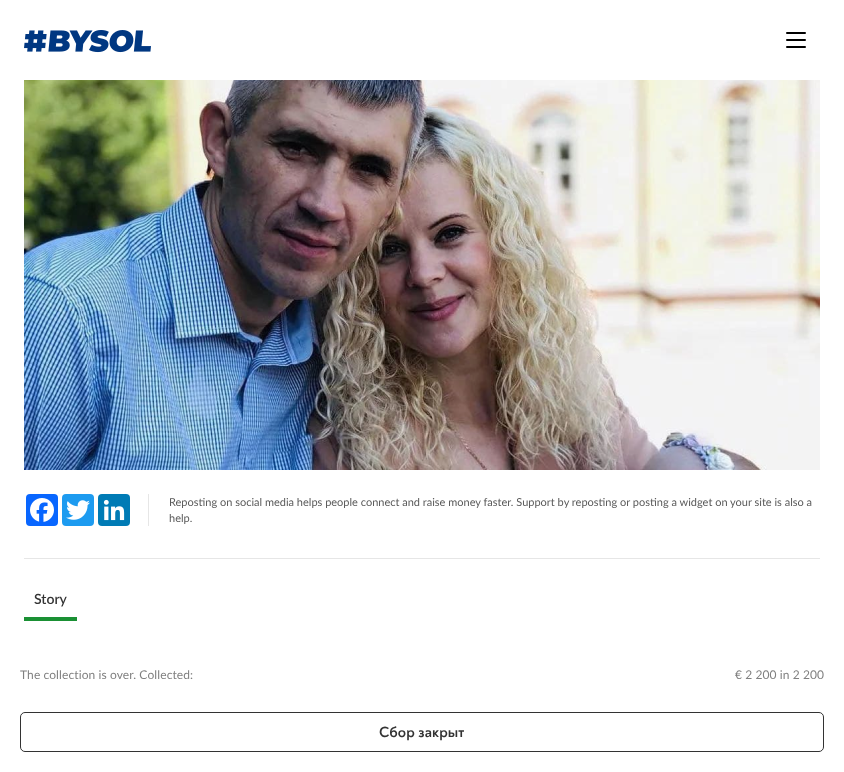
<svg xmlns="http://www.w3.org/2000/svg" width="844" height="772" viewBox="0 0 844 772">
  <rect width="100%" height="100%" fill="#fff"/>
  <image x="24" y="30" width="127" height="23" href="img/1.png"/>
  <rect x="786" y="32" width="20" height="2" rx="1" fill="#000"/>
  <rect x="786" y="39" width="20" height="2" rx="1" fill="#000"/>
  <rect x="786" y="46" width="20" height="2" rx="1" fill="#000"/>
  <image x="24" y="80" width="796" height="390" href="img/2.png"/>
  <path d="M24 558h796v1H24z" fill="#e6e6e6"/>
  <path d="M148 494h1v32H148z" fill="#e6e6e6"/>
  <rect x="26" y="494" width="32" height="32" rx="4" fill="#0866ff"/>
  <image x="30" y="498" width="24" height="24" href="img/3.png"/>
  <rect x="62" y="494" width="32" height="32" rx="4" fill="#1d9bf0"/>
  <image x="66" y="500" width="24" height="20" href="img/4.png"/>
  <rect x="98" y="494" width="32" height="32" rx="4" fill="#007bb5"/>
  <image x="103" y="499" width="22" height="22" href="img/5.png"/>
  <path d="M24 617h53v4H24z" fill="#1a9034"/>
  <rect x="20.5" y="712.5" width="803" height="39" rx="4.5" fill="none" stroke="#333"/>
  <g font-family="Lato" font-size="11" fill="#5a5a5a">
    <text x="169" y="506">Reposting on social media helps people connect and raise money faster. Support by reposting or posting a widget on your site is also a</text>
    <text x="169" y="522">help.</text>
  </g>
  <text x="34" y="604" font-family="Lato" font-size="14" font-weight="600" fill="#333">Story</text>
  <g font-family="Lato" font-size="12" letter-spacing="0.1" fill="#808080">
    <text x="20" y="679">The collection is over. Сollected:</text>
    <text x="735" y="679">€ 2 200 in 2 200</text>
  </g>
  <text x="379" y="737" font-family="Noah" font-size="15" font-weight="bold" letter-spacing="0.1" fill="#333">Сбор закрыт</text>
</svg>
